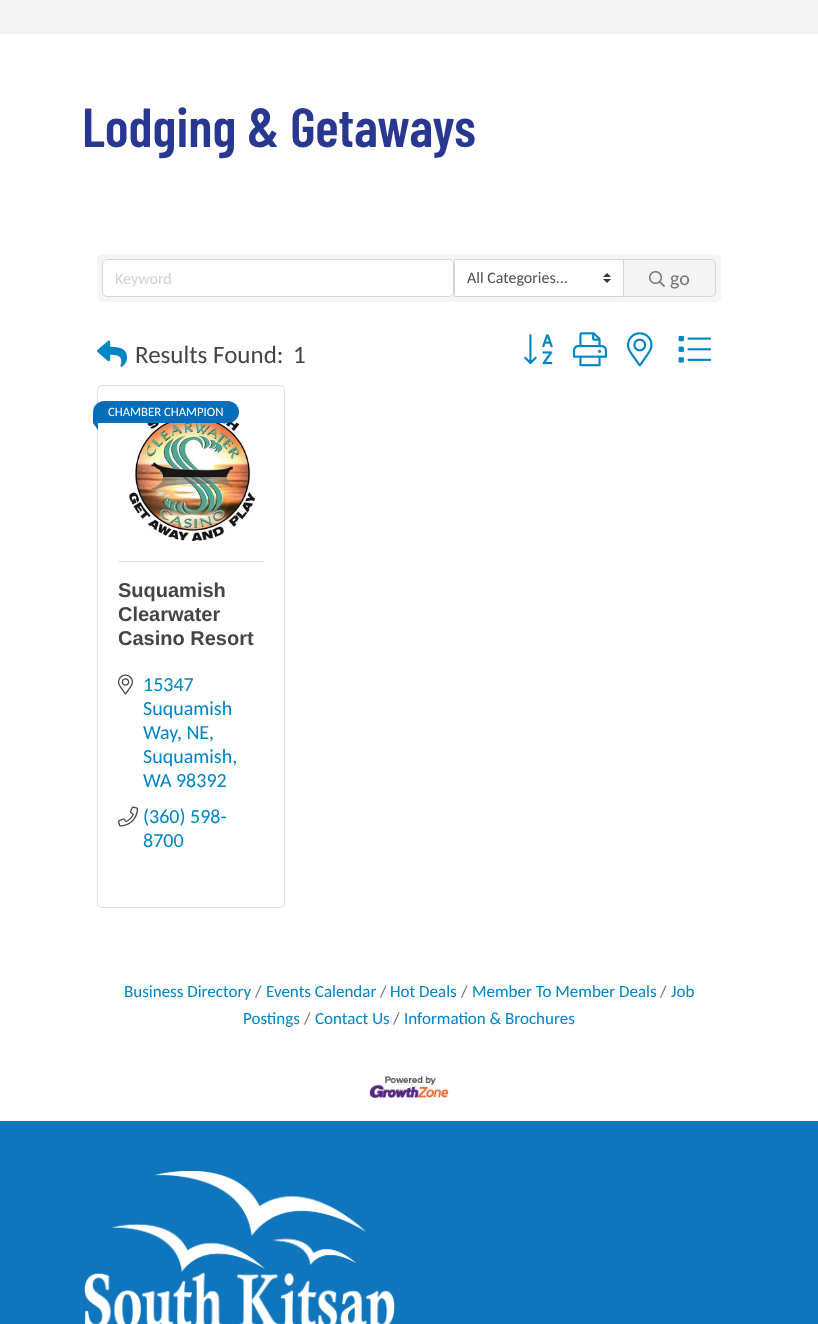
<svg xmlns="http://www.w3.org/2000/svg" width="818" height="1324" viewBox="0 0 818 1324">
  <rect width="100%" height="100%" fill="#fff"/>
  <path d="M0 0h818v34H0z" fill="#f4f4f4"/>
  <rect x="97" y="254" width="624" height="48" rx="5" fill="#f5f5f5"/>
  <rect x="102.5" y="259.5" width="351" height="37" rx="4.5" fill="#fff" stroke="#d6d6d6"/>
  <path d="M455 260h168v36H455z" fill="#fff"/>
  <image x="603" y="273" width="8" height="10" href="img/1.png"/>
  <path d="M454.5 259.5h169v37H454.5z" fill="none" stroke="#ced4da"/>
  <path d="M623.5 259.5H711C713.5 259.5 715.5 261.5 715.5 264V292C715.5 294.5 713.5 296.5 711 296.5H623.5Z" fill="#f4f4f4" stroke="#d6d6d6"/>
  <image x="649" y="271" width="16" height="16" href="img/2.png"/>
  <image x="97" y="340" width="31" height="27" href="img/3.png"/>
  <image x="524" y="334" width="29" height="31" href="img/4.png"/>
  <image x="573" y="332" width="34" height="35" href="img/5.png"/>
  <image x="627" y="332" width="26" height="35" href="img/6.png"/>
  <image x="678" y="336" width="33" height="27" href="img/7.png"/>
  <rect x="97.5" y="385.5" width="187" height="522" rx="4.5" fill="none" stroke="#dfdfdf"/>
  <image x="128" y="406" width="128" height="135" href="img/8.png"/>
  <path d="M104 401H228C234 401 239 406 239 412C239 418 234 423 228 423H93.5C93 423 93 423 93 422.5V412C93 406 98 401 104 401Z" fill="#036db9"/>
  <path d="M98 416V430L93 423Z" fill="#036db9"/>
  <path d="M118 561h146v1H118z" fill="#dfdfdf"/>
  <image x="118" y="674" width="15" height="21" href="img/9.png"/>
  <image x="118" y="806" width="20" height="21" href="img/10.png"/>
  <image x="369" y="1076" width="80" height="22" href="img/11.png"/>
  <path d="M0 1121h818v203H0z" fill="#0f75bc"/>
  <image x="84" y="1171" width="311" height="153" href="img/12.png"/>
  <text x="82" y="147" font-family="Barlow Condensed" font-size="55" font-weight="600" fill="#283891">Lodging &amp; Getaways</text>
  <text x="115" y="284" font-family="Carlito" font-size="16" fill="#d2d2d2">Keyword</text>
  <text x="467" y="283" font-family="Carlito" font-size="16" fill="#495057">All Categories...</text>
  <text x="670" y="285" font-family="Carlito" font-size="20" fill="#777">go</text>
  <g font-family="Carlito" font-size="25" fill="#444">
    <text x="135" y="363">Results Found:</text>
    <text x="293" y="363">1</text>
  </g>
  <text x="108" y="416" font-family="Carlito" font-size="12.75" fill="#fff">CHAMBER CHAMPION</text>
  <g font-family="Liberation Sans" font-size="20" font-weight="bold" fill="#444">
    <text x="118" y="597">Suquamish</text>
    <text x="118" y="621">Clearwater</text>
    <text x="118" y="645">Casino Resort</text>
  </g>
  <g font-family="Carlito" font-size="20" fill="#0085c4">
    <text x="143" y="691">15347</text>
    <text x="143" y="715">Suquamish</text>
    <text x="143" y="739">Way, NE,</text>
    <text x="143" y="763">Suquamish,</text>
    <text x="143" y="787">WA 98392</text>
    <text x="143" y="823">(360) 598-</text>
    <text x="143" y="847">8700</text>
  </g>
  <text x="124" y="997" font-family="Carlito" font-size="17" fill="#0085c4">Business Directory</text>
  <text x="660" y="997" font-family="Carlito" font-size="17" fill="#6c757d">/</text>
  <g font-family="Carlito" font-size="17" fill="#0085c4">
    <text x="671" y="997">Job</text>
    <text x="243" y="1024">Postings</text>
  </g>
  <text x="255" y="997" font-family="Carlito" font-size="17" fill="#6c757d">/</text>
  <text x="266" y="997" font-family="Carlito" font-size="17" fill="#0085c4">Events Calendar</text>
  <text x="380" y="997" font-family="Carlito" font-size="17" fill="#6c757d">/</text>
  <text x="390" y="997" font-family="Carlito" font-size="17" fill="#0085c4">Hot Deals</text>
  <text x="461" y="997" font-family="Carlito" font-size="17" fill="#6c757d">/</text>
  <text x="472" y="997" font-family="Carlito" font-size="17" fill="#0085c4">Member To Member Deals</text>
  <text x="304" y="1024" font-family="Carlito" font-size="17" fill="#6c757d">/</text>
  <text x="315" y="1024" font-family="Carlito" font-size="17" fill="#0085c4">Contact Us</text>
  <text x="393" y="1024" font-family="Carlito" font-size="17" fill="#6c757d">/</text>
  <text x="404" y="1024" font-family="Carlito" font-size="17" fill="#0085c4">Information &amp; Brochures</text>
</svg>
